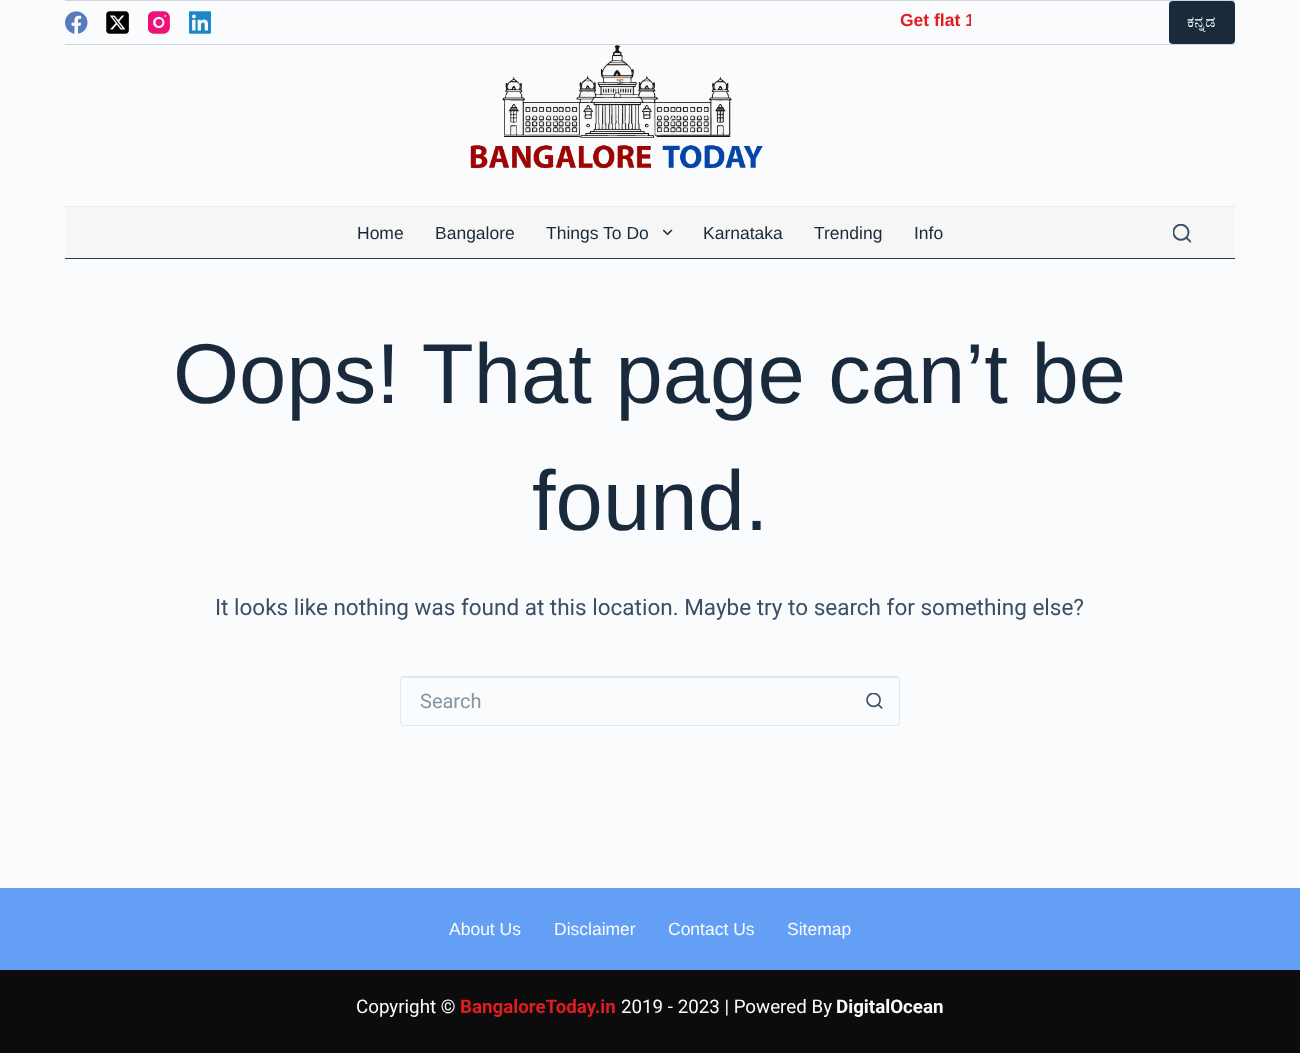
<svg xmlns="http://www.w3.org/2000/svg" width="1300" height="1053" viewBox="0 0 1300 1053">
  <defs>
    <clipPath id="clip1"><path d="M329 9h642v22H329z"/></clipPath>
  </defs>
  <rect width="100%" height="100%" fill="#fafbfc"/>
  <path d="M65 0h1170v1H65z" fill="#d1d5da"/>
  <path d="M65 44h1170v1H65z" fill="#d1d5da"/>
  <image x="65" y="11" width="23" height="23" href="img/1.png"/>
  <image x="106" y="11" width="23" height="23" href="img/2.png"/>
  <image x="148" y="11" width="22" height="23" href="img/3.png"/>
  <image x="189" y="11" width="22" height="23" href="img/4.png"/>
  <rect x="1169" y="1" width="66" height="43" rx="4" fill="#192a3d"/>
  <image x="470" y="45" width="293" height="124" href="img/5.png"/>
  <path d="M65 207h1170v51H65z" fill="#f6f6f6"/>
  <path d="M65 206h1170v1H65z" fill="#ecedee"/>
  <path d="M65 258h1170v1H65z" fill="#2b3d4f"/>
  <image x="663" y="229" width="10" height="7" href="img/6.png"/>
  <image x="1173" y="224" width="18" height="19" href="img/7.png"/>
  <path d="M404 676H850V726H404C402 726 400 725 400 722V680C400 678 402 676 404 676ZM404 678H850V725H404C402 725 401 724 401 722V680C401 679 402 678 404 678Z" fill="#e1e8ed" fill-rule="evenodd"/>
  <path d="M850 676H896C898 676 900 678 900 680V722C900 725 898 726 896 726H850ZM850 678H896C898 678 899 679 899 680V722C899 724 898 725 896 725H850Z" fill="#e1e8ed" fill-rule="evenodd"/>
  <image x="866" y="693" width="17" height="16" href="img/8.png"/>
  <path d="M0 888h1300v82H0z" fill="#63a0f5"/>
  <path d="M0 970h1300v83H0z" fill="#0c0c0c"/>
  <g clip-path="url(#clip1)">
    <text x="900" y="26" font-family="Liberation Sans" font-size="17.5" font-weight="bold" fill="#e21b22">Get flat 1</text>
  </g>
  <text x="1187" y="27" font-family="FreeSerif" font-size="16" fill="#fafbfc">ಕನ್ನಡ</text>
  <g font-family="Liberation Sans" font-size="17.5" fill="#192a3d">
    <text x="357" y="239">Home</text>
    <text x="435" y="239">Bangalore</text>
    <text x="546" y="239">Things To Do</text>
    <text x="703" y="239">Karnataka</text>
    <text x="814" y="239">Trending</text>
    <text x="914" y="239">Info</text>
  </g>
  <g font-family="Liberation Sans" font-size="85" fill="#192a3d">
    <text x="173" y="403">Oops! That page can’t be</text>
    <text x="532" y="530">found.</text>
  </g>
  <text x="215" y="615" font-family="Roboto" font-size="22.5" fill="#3a4f66">It looks like nothing was found at this location. Maybe try to search for something else?</text>
  <text x="420" y="708" font-family="Roboto" font-size="20" fill="#8794a2">Search</text>
  <g font-family="Liberation Sans" font-size="17.5" fill="#fafbfc">
    <text x="449" y="935">About Us</text>
    <text x="554" y="935">Disclaimer</text>
    <text x="668" y="935">Contact Us</text>
    <text x="787" y="935">Sitemap</text>
  </g>
  <text x="356" y="1013" font-family="Roboto" font-size="18.75" fill="#fafbfc">Copyright ©</text>
  <text x="460" y="1013" font-family="Roboto" font-size="18.75" font-weight="bold" fill="#e21b22">BangaloreToday.in</text>
  <text x="621" y="1013" font-family="Roboto" font-size="18.75" fill="#fafbfc">2019 - 2023 | Powered By</text>
  <text x="836" y="1013" font-family="Roboto" font-size="18.75" font-weight="bold" fill="#fafbfc">DigitalOcean</text>
</svg>
